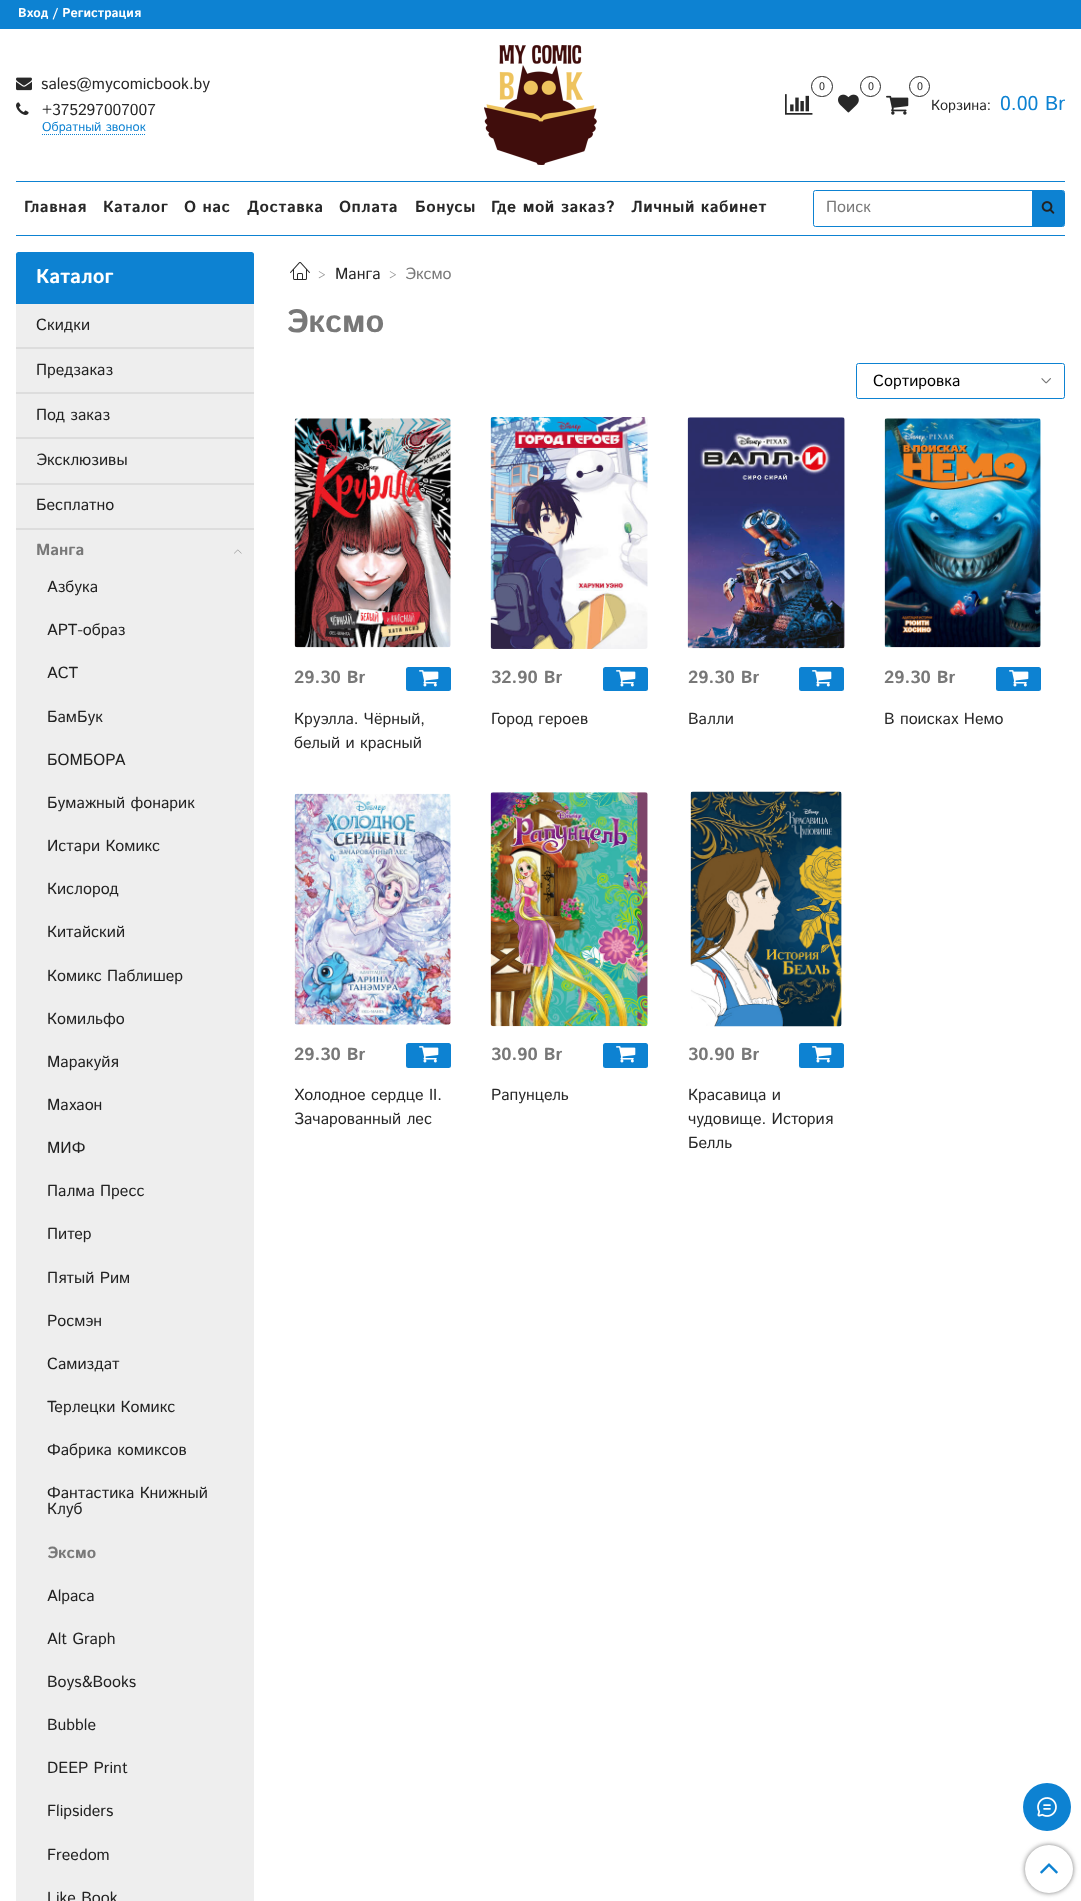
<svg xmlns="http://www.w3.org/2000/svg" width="1081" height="1901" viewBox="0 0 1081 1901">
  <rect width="100%" height="100%" fill="#fff"/>
  <path d="M0 0h1081v29H0z" fill="#0d82d2"/>
  <image x="16" y="77" width="16" height="14" href="img/1.png"/>
  <image x="16" y="102" width="13" height="13" href="img/2.png"/>
  <path d="M42 134.5H146" fill="none" stroke="#0d82d2" stroke-dasharray="1 1"/>
  <image x="484" y="45" width="113" height="120" href="img/3.png"/>
  <image x="785" y="94" width="28" height="21" href="img/4.png"/>
  <rect x="811.5" y="76.5" width="21" height="20" rx="10" fill="none" stroke="#282828"/>
  <circle cx="870.5" cy="86.5" r="10" fill="none" stroke="#282828"/>
  <image x="838" y="94" width="21" height="19" href="img/5.png"/>
  <circle cx="919.5" cy="86.5" r="10" fill="none" stroke="#282828"/>
  <image x="886" y="95" width="23" height="20" href="img/6.png"/>
  <path d="M16 181h1049v1H16z" fill="#0d82d2"/>
  <path d="M16 235h1049v1H16z" fill="#0d82d2"/>
  <rect x="813.5" y="190.5" width="251" height="36" rx="2" fill="none" stroke="#0d82d2"/>
  <path d="M1032 191H1062.5C1063.5 191 1064 191.5 1064 192.5V224.5C1064 225.5 1063.5 226 1062.5 226H1032Z" fill="#0d82d2"/>
  <image x="1041" y="201" width="14" height="13" href="img/7.png"/>
  <path d="M18.5 252H251.5C253 252 254 253 254 254.5V304H16V254.5C16 253 17 252 18.5 252Z" fill="#0d82d2"/>
  <path d="M16 304h238v1597H16z" fill="#eee"/>
  <path d="M16 347h238v2H16z" fill="#ddd"/>
  <path d="M16 392h238v2H16z" fill="#ddd"/>
  <path d="M16 437h238v2H16z" fill="#ddd"/>
  <path d="M16 483h238v2H16z" fill="#ddd"/>
  <path d="M16 528h238v2H16z" fill="#ddd"/>
  <image x="234" y="549" width="8" height="5" href="img/8.png"/>
  <image x="290" y="262" width="20" height="18" href="img/9.png"/>
  <image x="1041" y="378" width="10" height="6" href="img/10.png"/>
  <rect x="856.5" y="363.5" width="208" height="35" rx="2" fill="none" stroke="#0d82d2"/>
  <image x="294" y="418" width="157" height="230" href="img/11.png"/>
  <rect x="406" y="667" width="45" height="24" rx="2.5" fill="#0d82d2"/>
  <image x="419" y="670" width="20" height="17" href="img/12.png"/>
  <image x="490" y="417" width="158" height="232" href="img/13.png"/>
  <rect x="603" y="667" width="45" height="24" rx="2.5" fill="#0d82d2"/>
  <image x="616" y="670" width="20" height="17" href="img/12.png"/>
  <image x="687" y="417" width="158" height="232" href="img/14.png"/>
  <rect x="799" y="667" width="45" height="24" rx="2.5" fill="#0d82d2"/>
  <image x="812" y="670" width="20" height="17" href="img/12.png"/>
  <image x="884" y="418" width="157" height="230" href="img/15.png"/>
  <rect x="996" y="667" width="45" height="24" rx="2.5" fill="#0d82d2"/>
  <image x="1009" y="670" width="20" height="17" href="img/12.png"/>
  <image x="294" y="793" width="157" height="232" href="img/16.png"/>
  <rect x="406" y="1043" width="45" height="25" rx="2.5" fill="#0d82d2"/>
  <image x="419" y="1046" width="20" height="17" href="img/12.png"/>
  <image x="490" y="792" width="158" height="235" href="img/17.png"/>
  <rect x="603" y="1043" width="45" height="25" rx="2.5" fill="#0d82d2"/>
  <image x="616" y="1046" width="20" height="17" href="img/12.png"/>
  <image x="690" y="791" width="152" height="236" href="img/18.png"/>
  <rect x="799" y="1043" width="45" height="25" rx="2.5" fill="#0d82d2"/>
  <image x="812" y="1046" width="20" height="17" href="img/12.png"/>
  <rect x="1025" y="1845" width="48" height="48" rx="24" fill="#777" filter="blur(2.5px)"/>
  <circle cx="1049" cy="1869" r="24" fill="#fff"/>
  <image x="1040" y="1863" width="18" height="11" href="img/19.png"/>
  <circle cx="1047" cy="1807" r="24" fill="#0d82d2"/>
  <image x="1037" y="1797" width="20" height="20" href="img/20.png"/>
  <text x="18" y="17" font-family="Istok Web" font-size="12.75" font-weight="bold" fill="#fff">Вход / Регистрация</text>
  <g font-family="Istok Web" font-size="16" fill="#282828">
    <text x="41" y="89">sales@mycomicbook.by</text>
    <text x="42" y="115">+375297007007</text>
  </g>
  <text x="42" y="131" font-family="Istok Web" font-size="12.75" fill="#0d82d2">Обратный звонок</text>
  <g font-family="Istok Web" font-size="11" fill="#282828">
    <text x="819" y="90">0</text>
    <text x="868" y="90">0</text>
    <text x="917" y="90">0</text>
  </g>
  <text x="931" y="110" font-family="Istok Web" font-size="14.5" fill="#282828">Корзина:</text>
  <text x="1000" y="110" font-family="Istok Web" font-size="20" fill="#0d82d2">0.00 Br</text>
  <g font-family="Istok Web" font-size="16" font-weight="bold" letter-spacing="0.5" fill="#282828">
    <text x="24" y="212">Главная</text>
    <text x="103" y="212">Каталог</text>
    <text x="184" y="212">О нас</text>
    <text x="247" y="212">Доставка</text>
    <text x="339" y="212">Оплата</text>
    <text x="415" y="212">Бонусы</text>
    <text x="491" y="212">Где мой заказ?</text>
    <text x="631" y="212">Личный кабинет</text>
  </g>
  <text x="826" y="212" font-family="Istok Web" font-size="16" fill="#787878">Поиск</text>
  <text x="36" y="283" font-family="Istok Web" font-size="20" font-weight="bold" fill="#fff">Каталог</text>
  <g font-family="Istok Web" font-size="16" fill="#222">
    <text x="36" y="330">Скидки</text>
    <text x="36" y="375">Предзаказ</text>
    <text x="36" y="420">Под заказ</text>
    <text x="36" y="465">Эксклюзивы</text>
    <text x="36" y="510">Бесплатно</text>
  </g>
  <text x="36" y="555" font-family="Istok Web" font-size="16" font-weight="bold" fill="#787878">Манга</text>
  <g font-family="Istok Web" font-size="16" fill="#222">
    <text x="47" y="592">Азбука</text>
    <text x="47" y="635">АРТ-образ</text>
    <text x="47" y="678">АСТ</text>
    <text x="47" y="722">БамБук</text>
    <text x="47" y="765">БОМБОРА</text>
    <text x="47" y="808">Бумажный фонарик</text>
    <text x="47" y="851">Истари Комикс</text>
    <text x="47" y="894">Кислород</text>
    <text x="47" y="937">Китайский</text>
    <text x="47" y="981">Комикс Паблишер</text>
    <text x="47" y="1024">Комильфо</text>
    <text x="47" y="1067">Маракуйя</text>
    <text x="47" y="1110">Махаон</text>
    <text x="47" y="1153">МИФ</text>
    <text x="47" y="1196">Палма Пресс</text>
    <text x="47" y="1239">Питер</text>
    <text x="47" y="1283">Пятый Рим</text>
    <text x="47" y="1326">Росмэн</text>
    <text x="47" y="1369">Самиздат</text>
    <text x="47" y="1412">Терлецки Комикс</text>
    <text x="47" y="1455">Фабрика комиксов</text>
    <text x="47" y="1498">Фантастика Книжный</text>
    <text x="47" y="1514">Клуб</text>
  </g>
  <text x="47" y="1558" font-family="Istok Web" font-size="16" font-weight="bold" fill="#787878">Эксмо</text>
  <g font-family="Istok Web" font-size="16" fill="#222">
    <text x="47" y="1601">Alpaca</text>
    <text x="47" y="1644">Alt Graph</text>
    <text x="47" y="1687">Boys&amp;Books</text>
    <text x="47" y="1730">Bubble</text>
    <text x="47" y="1773">DEEP Print</text>
    <text x="47" y="1816">Flipsiders</text>
    <text x="47" y="1860">Freedom</text>
    <text x="47" y="1903">Like Book</text>
  </g>
  <text x="318" y="279" font-family="Istok Web" font-size="12" fill="#939393">&gt;</text>
  <text x="335" y="279" font-family="Istok Web" font-size="16" fill="#282828">Манга</text>
  <text x="389" y="279" font-family="Istok Web" font-size="12" fill="#939393">&gt;</text>
  <text x="405" y="279" font-family="Istok Web" font-size="16" fill="#787878">Эксмо</text>
  <text x="286" y="332" font-family="Istok Web" font-size="32" font-weight="bold" fill="#787878">Эксмо</text>
  <text x="873" y="386" font-family="Istok Web" font-size="16" fill="#000">Сортировка</text>
  <text x="294" y="683" font-family="Istok Web" font-size="17.5" font-weight="bold" fill="#787878">29.30 Br</text>
  <g font-family="Istok Web" font-size="16" fill="#282828">
    <text x="294" y="724">Круэлла. Чёрный,</text>
    <text x="294" y="748">белый и красный</text>
  </g>
  <text x="491" y="683" font-family="Istok Web" font-size="17.5" font-weight="bold" fill="#787878">32.90 Br</text>
  <text x="491" y="724" font-family="Istok Web" font-size="16" fill="#282828">Город героев</text>
  <text x="688" y="683" font-family="Istok Web" font-size="17.5" font-weight="bold" fill="#787878">29.30 Br</text>
  <text x="688" y="724" font-family="Istok Web" font-size="16" fill="#282828">Валли</text>
  <text x="884" y="683" font-family="Istok Web" font-size="17.5" font-weight="bold" fill="#787878">29.30 Br</text>
  <text x="884" y="724" font-family="Istok Web" font-size="16" fill="#282828">В поисках Немо</text>
  <text x="294" y="1060" font-family="Istok Web" font-size="17.5" font-weight="bold" fill="#787878">29.30 Br</text>
  <g font-family="Istok Web" font-size="16" fill="#282828">
    <text x="294" y="1100">Холодное сердце II.</text>
    <text x="294" y="1124">Зачарованный лес</text>
  </g>
  <text x="491" y="1060" font-family="Istok Web" font-size="17.5" font-weight="bold" fill="#787878">30.90 Br</text>
  <text x="491" y="1100" font-family="Istok Web" font-size="16" fill="#282828">Рапунцель</text>
  <text x="688" y="1060" font-family="Istok Web" font-size="17.5" font-weight="bold" fill="#787878">30.90 Br</text>
  <g font-family="Istok Web" font-size="16" fill="#282828">
    <text x="688" y="1100">Красавица и</text>
    <text x="688" y="1124">чудовище. История</text>
    <text x="688" y="1148">Белль</text>
  </g>
</svg>
